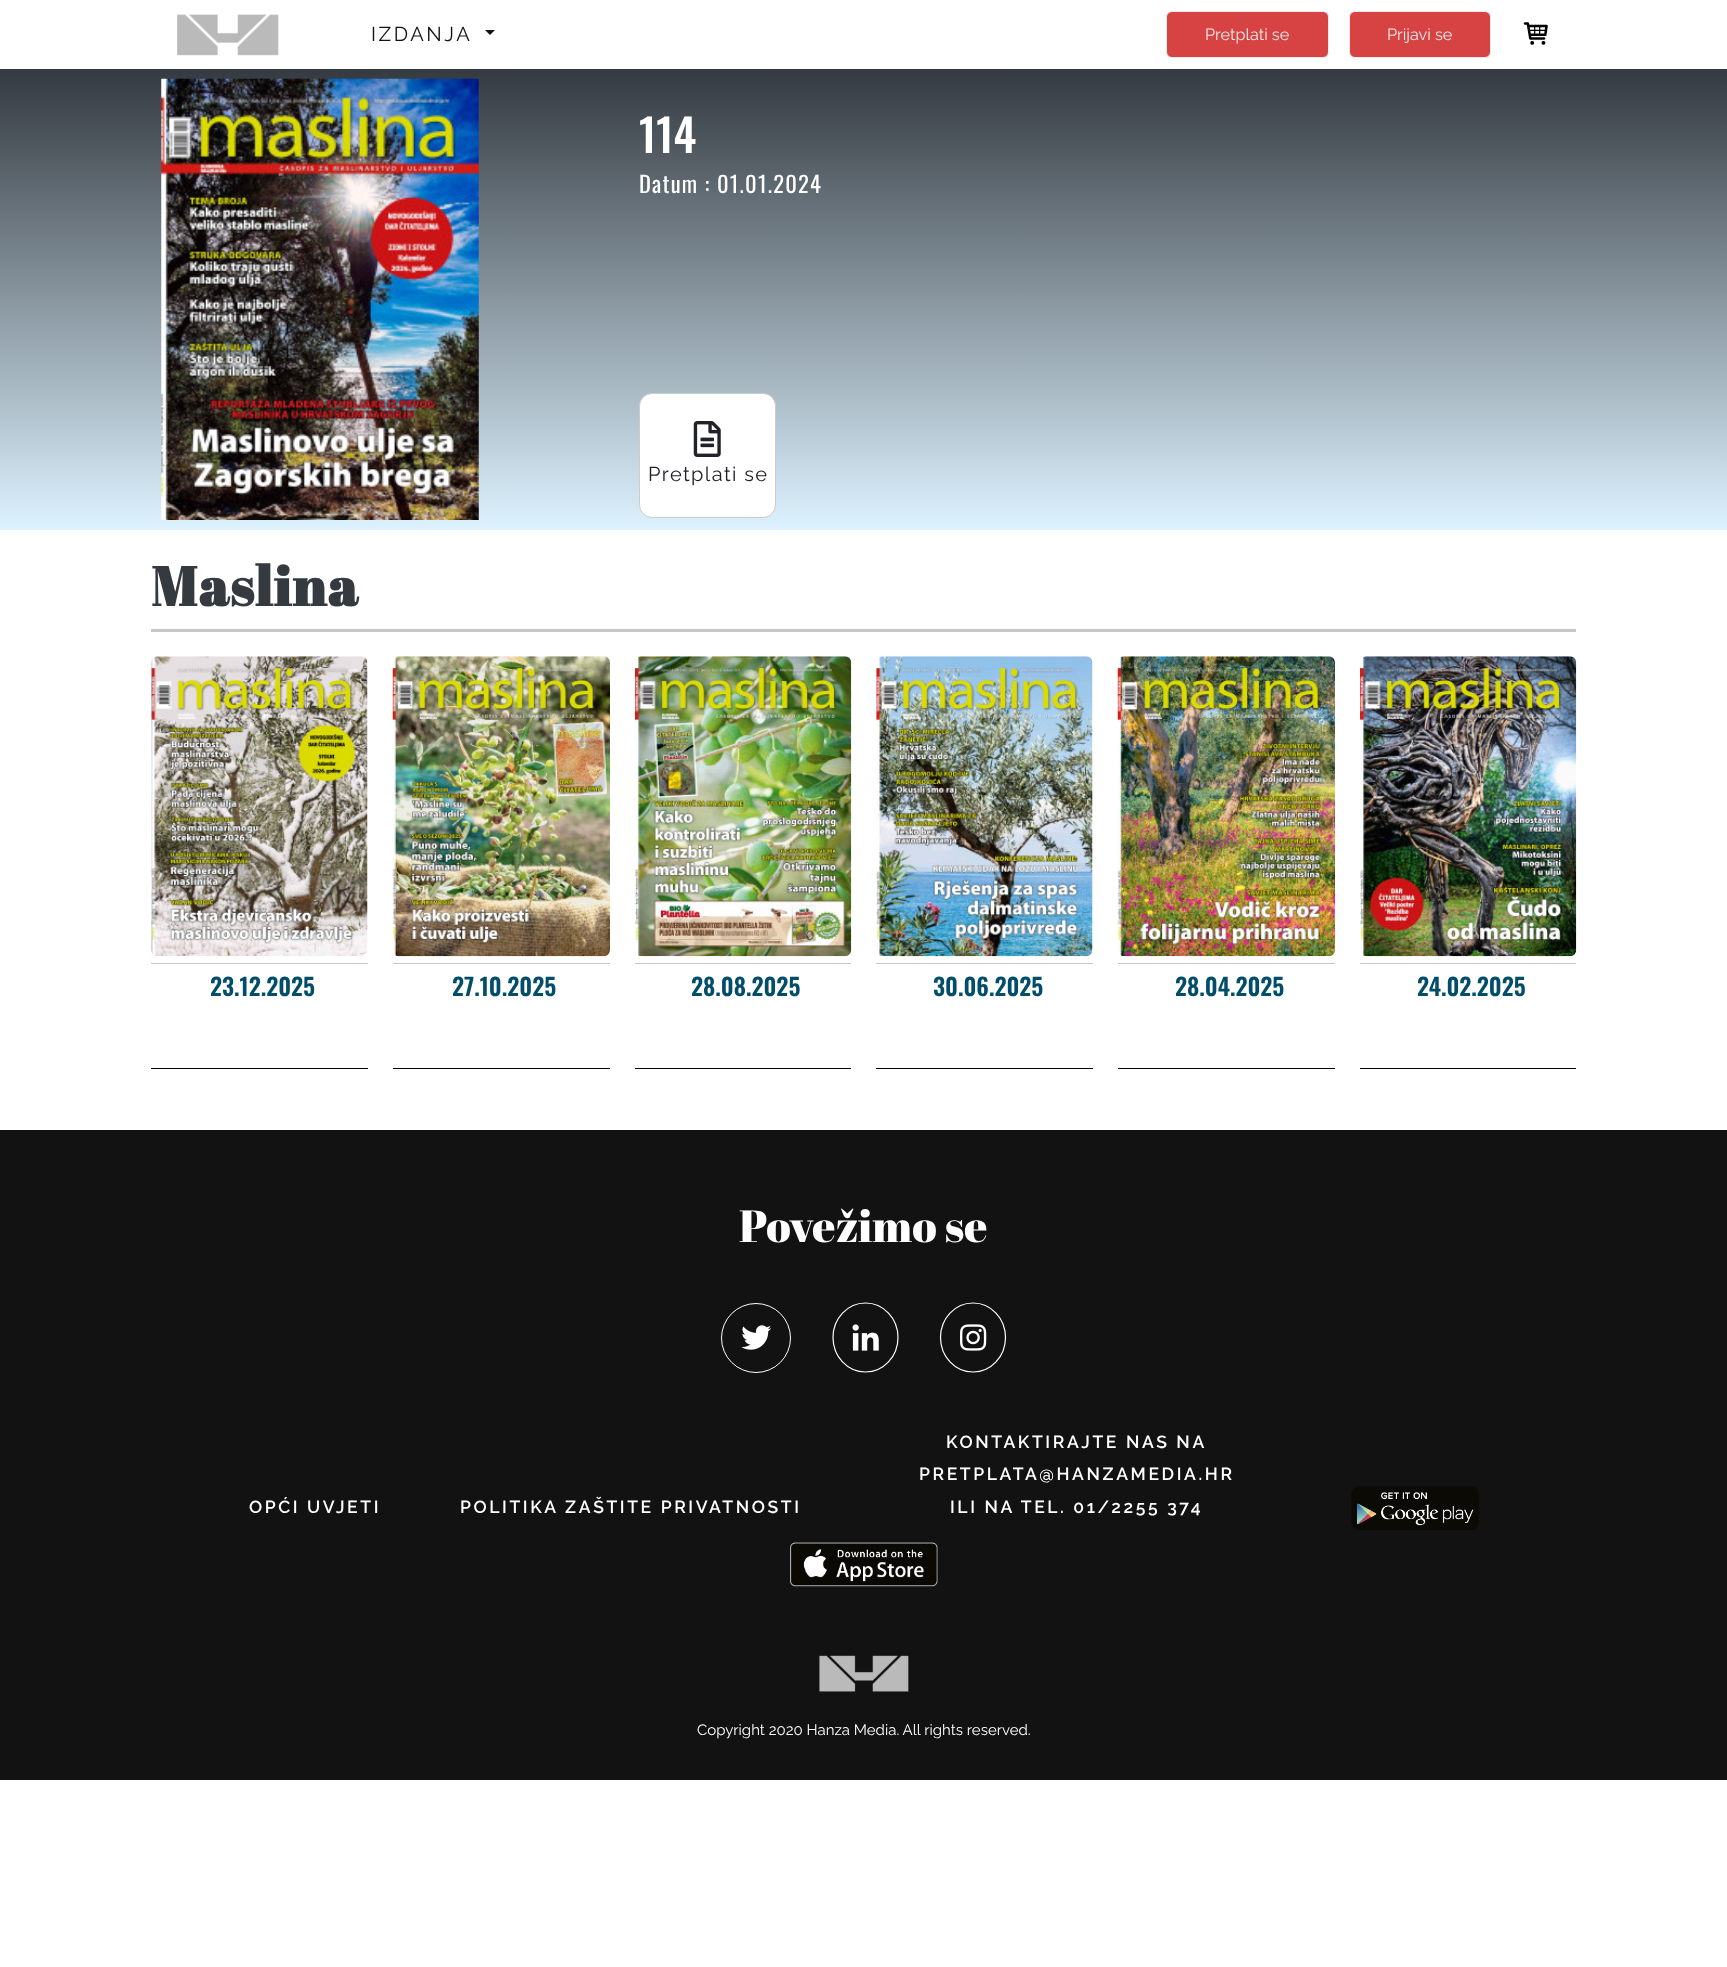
<svg xmlns="http://www.w3.org/2000/svg" width="1727" height="1967" viewBox="0 0 1727 1967">
  <defs>
    <linearGradient id="g1" gradientUnits="userSpaceOnUse" x1="864" y1="69" x2="864" y2="530"><stop offset="0" stop-color="#343a40"/><stop offset="1" stop-color="#ddf2ff"/></linearGradient>
  </defs>
  <rect width="100%" height="100%" fill="#fff"/>
  <image x="177" y="14" width="102" height="42" href="img/1.png"/>
  <path d="M485 30H495L490 35Z" fill="#121212"/>
  <rect x="1166.5" y="11.5" width="162" height="46" rx="5.5" fill="#d74343" stroke="#ebebeb"/>
  <rect x="1349.5" y="11.5" width="141" height="46" rx="5.5" fill="#d74343" stroke="#ebebeb"/>
  <image x="1523" y="22" width="25" height="23" href="img/2.png"/>
  <path d="M0 69h1727v461H0z" fill="url(#g1)"/>
  <image x="161" y="78" width="318" height="442" href="img/3.png"/>
  <rect x="639.5" y="393.5" width="136" height="124" rx="12.5" fill="#fff" stroke="#ccc"/>
  <image x="693" y="421" width="28" height="36" href="img/4.png"/>
  <path d="M151 629h1425v3H151z" fill="#c6c6c6"/>
  <path d="M151 1068h217v1H151z" fill="#000"/>
  <path d="M151 963h217v1H151z" fill="#c6c6c6"/>
  <image x="151" y="656" width="217" height="301" href="img/5.png"/>
  <path d="M393 1068h217v1H393z" fill="#000"/>
  <path d="M393 963h217v1H393z" fill="#c6c6c6"/>
  <image x="392" y="656" width="218" height="301" href="img/6.png"/>
  <path d="M635 1068h216v1H635z" fill="#000"/>
  <path d="M635 963h216v1H635z" fill="#c6c6c6"/>
  <image x="635" y="656" width="217" height="301" href="img/7.png"/>
  <path d="M876 1068h217v1H876z" fill="#000"/>
  <path d="M876 963h217v1H876z" fill="#c6c6c6"/>
  <image x="876" y="656" width="217" height="301" href="img/8.png"/>
  <path d="M1118 1068h217v1H1118z" fill="#000"/>
  <path d="M1118 963h217v1H1118z" fill="#c6c6c6"/>
  <image x="1117" y="656" width="218" height="301" href="img/9.png"/>
  <path d="M1360 1068h216v1H1360z" fill="#000"/>
  <path d="M1360 963h216v1H1360z" fill="#c6c6c6"/>
  <image x="1360" y="656" width="217" height="301" href="img/10.png"/>
  <path d="M0 1130h1727v650H0z" fill="#121212"/>
  <circle cx="756" cy="1338" r="34.5" fill="none" stroke="#fff"/>
  <image x="741" y="1325" width="31" height="25" href="img/11.png"/>
  <path d="M865.5 1303C883.5 1303 898 1318.5 898 1337.5C898 1356.5 883.5 1372 865.5 1372C847.5 1372 833 1356.5 833 1337.5C833 1318.5 847.5 1303 865.5 1303Z" fill="none" stroke="#fff" stroke-width="1.2"/>
  <image x="852" y="1324" width="27" height="27" href="img/12.png"/>
  <path d="M973 1303C991 1303 1005.5 1318.5 1005.5 1337.5C1005.5 1356.5 991 1372 973 1372C955 1372 940.5 1356.5 940.5 1337.5C940.5 1318.5 955 1303 973 1303Z" fill="none" stroke="#fff" stroke-width="1.2"/>
  <image x="960" y="1324" width="27" height="27" href="img/13.png"/>
  <image x="1351" y="1486" width="128" height="44" href="img/14.png"/>
  <image x="790" y="1542" width="148" height="45" href="img/15.png"/>
  <image x="819" y="1655" width="90" height="37" href="img/16.png"/>
  <text x="371" y="41" font-family="Raleway" font-size="20" letter-spacing="2.6" fill="#121212">IZDANJA</text>
  <g font-family="Raleway" font-size="16.25" fill="#ebebeb">
    <text x="1205" y="40">Pretplati se</text>
    <text x="1387" y="40">Prijavi se</text>
  </g>
  <text x="639" y="153" font-family="Oswald" font-size="45" font-weight="500" fill="#fff">114</text>
  <text x="639" y="193" font-family="Oswald" font-size="22.5" letter-spacing="1.25" fill="#fff">Datum : 01.01.2024</text>
  <text x="648" y="481" font-family="Raleway" font-size="20" letter-spacing="1.4" fill="#212229">Pretplati se</text>
  <text x="151" y="606" font-family="Abril Fatface" font-size="55" font-weight="bold" letter-spacing="1.25" fill="#343a40">Maslina</text>
  <g font-family="Oswald" font-size="23.75" font-weight="600" fill="#024d6a">
    <text x="210" y="996">23.12.2025</text>
    <text x="452" y="996">27.10.2025</text>
    <text x="691" y="996">28.08.2025</text>
    <text x="933" y="996">30.06.2025</text>
    <text x="1175" y="996">28.04.2025</text>
    <text x="1417" y="996">24.02.2025</text>
  </g>
  <text x="739" y="1242" font-family="Abril Fatface" font-size="45" fill="#fff">Povežimo se</text>
  <g font-family="Raleway" font-size="17.5" font-weight="600" letter-spacing="2.6" fill="#fff">
    <text x="249" y="1513">OPĆI UVJETI</text>
    <text x="460" y="1513">POLITIKA ZAŠTITE PRIVATNOSTI</text>
    <text x="946" y="1448">KONTAKTIRAJTE NAS NA</text>
    <text x="919" y="1480">PRETPLATA@HANZAMEDIA.HR</text>
    <text x="950" y="1513">ILI NA TEL. 01/2255 374</text>
  </g>
  <text x="697" y="1735" font-family="Raleway" font-size="15" fill="#fff">Copyright 2020 Hanza Media. All rights reserved.</text>
</svg>
